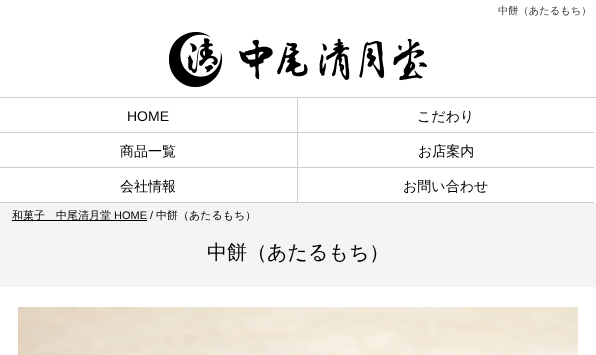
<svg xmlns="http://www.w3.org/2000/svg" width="596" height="355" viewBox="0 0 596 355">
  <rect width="100%" height="100%" fill="#fff"/>
  <image x="169" y="32" width="258" height="55" href="img/1.png"/>
  <path d="M0 97h596v1H0z" fill="#ccc"/>
  <path d="M297 98h1v105H297z" fill="#ccc"/>
  <path d="M0 132h594v1H0z" fill="#ccc"/>
  <path d="M0 167h594v1H0z" fill="#ccc"/>
  <path d="M0 202h594v1H0z" fill="#ccc"/>
  <path d="M0 203h596v84H0z" fill="#f4f4f4"/>
  <path d="M12 220h135v1H12z" fill="#000"/>
  <image x="18" y="307" width="560" height="48" href="img/2.png"/>
  <text x="498" y="14" font-family="WenQuanYi Zen Hei" font-size="10.25" font-weight="500" fill="#333">中餅（あたるもち）</text>
  <text x="127" y="121" font-family="Liberation Sans" font-size="14" fill="#000">HOME</text>
  <g font-family="WenQuanYi Zen Hei" font-size="14" font-weight="500" fill="#000">
    <text x="417" y="121">こだわり</text>
    <text x="120" y="156">商品一覧</text>
    <text x="418" y="156">お店案内</text>
    <text x="120" y="191">会社情報</text>
    <text x="403" y="191">お問い合わせ</text>
  </g>
  <text x="12" y="219" font-family="WenQuanYi Zen Hei" font-size="11" font-weight="500" fill="#000">和菓子　中尾清月堂</text>
  <text x="114" y="219" font-family="Liberation Sans" font-size="11" fill="#000">HOME /</text>
  <text x="156" y="219" font-family="WenQuanYi Zen Hei" font-size="11" font-weight="500" fill="#000">中餅（あたるもち）</text>
  <text x="207" y="259" font-family="WenQuanYi Zen Hei" font-size="20" font-weight="500" fill="#000">中餅（あたるもち）</text>
</svg>
